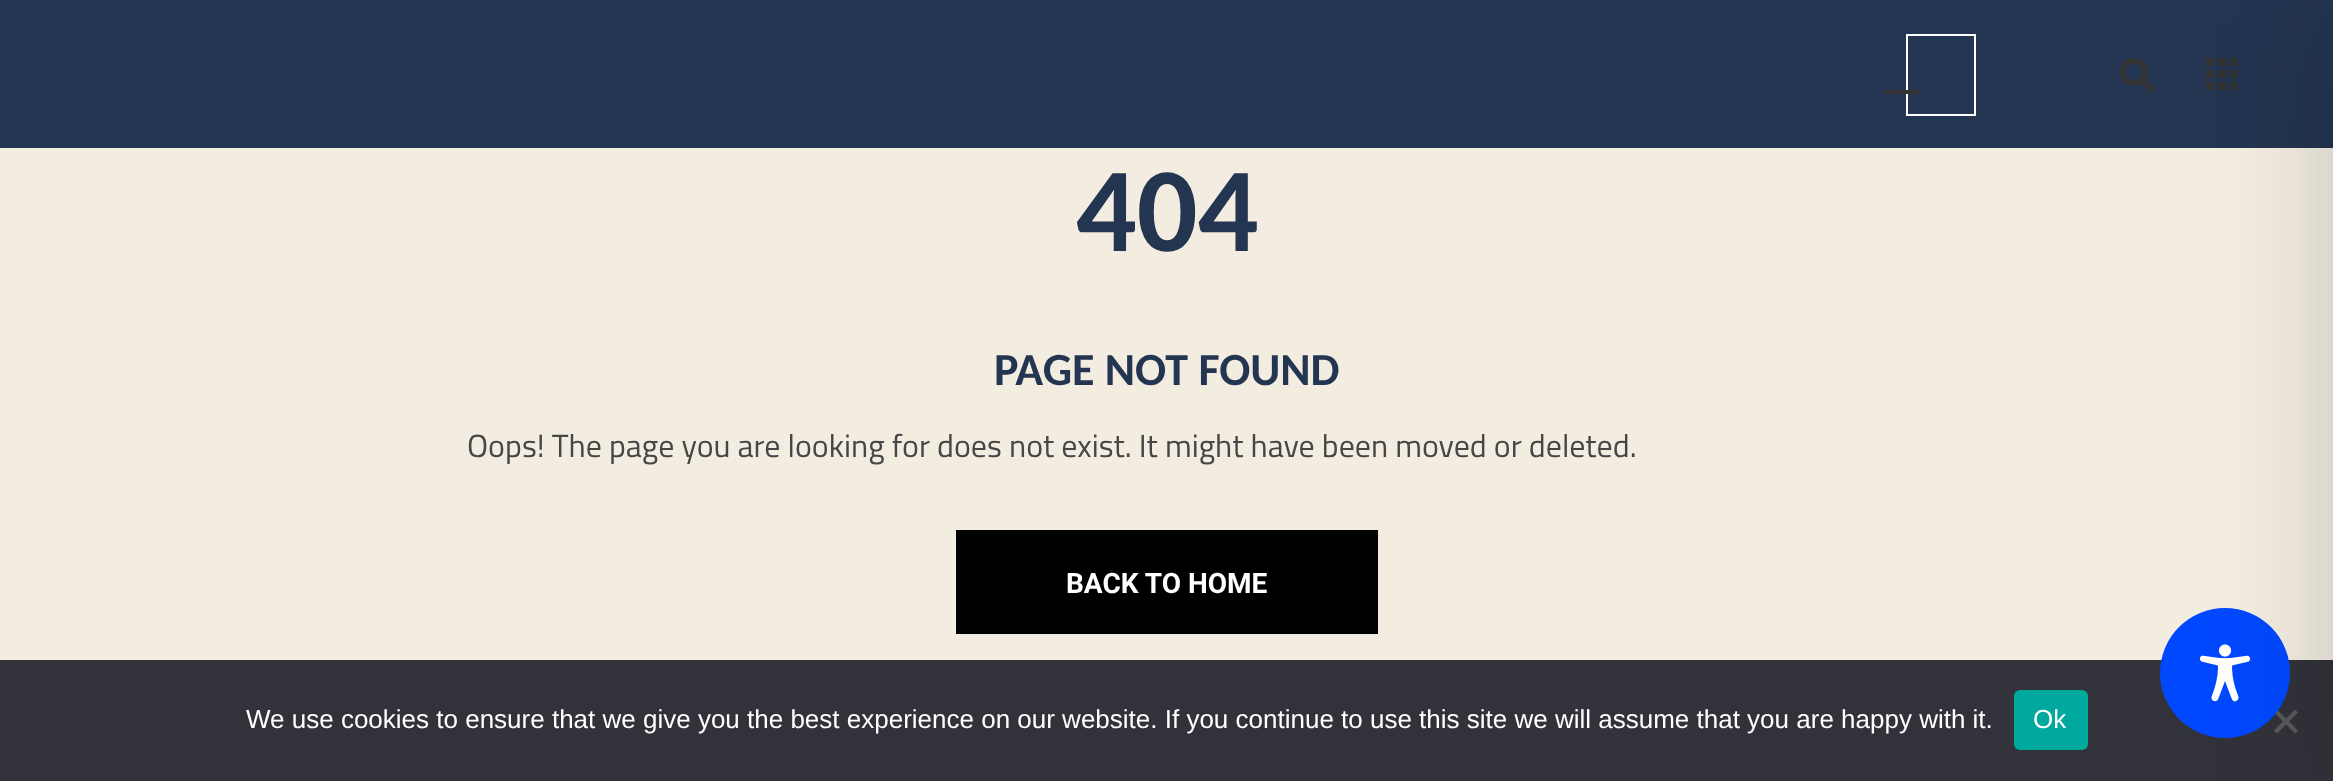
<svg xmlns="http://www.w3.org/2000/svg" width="2333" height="781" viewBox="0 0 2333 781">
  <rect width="100%" height="100%" fill="#f2ece1"/>
  <path d="M0 0h2333v148H0z" fill="#243551"/>
  <path d="M1907 35h68v80H1907z" fill="none" stroke="#fff" stroke-width="2"/>
  <image x="2120" y="58" width="34" height="35" href="img/1.png"/>
  <path d="M2206 58h8v8H2206z" fill="#333"/>
  <path d="M2218 58h8v8H2218z" fill="#333"/>
  <path d="M2230 58h8v8H2230z" fill="#333"/>
  <path d="M2206 70h8v8H2206z" fill="#333"/>
  <path d="M2218 70h8v8H2218z" fill="#333"/>
  <path d="M2230 70h8v8H2230z" fill="#333"/>
  <path d="M2206 82h8v8H2206z" fill="#333"/>
  <path d="M2218 82h8v8H2218z" fill="#333"/>
  <path d="M2230 82h8v8H2230z" fill="#333"/>
  <path d="M1884 90h36v4H1884z" fill="#333"/>
  <path d="M958 532h418v100H958z" fill="none" stroke="#000" stroke-width="4"/>
  <path d="M960 534h414v96H960z" fill="#000"/>
  <path d="M0 660h2333v121H0z" fill="#32323a"/>
  <path d="M2295 709.5L2298 712.5L2277 733.5L2274 730.5Z" fill="#59595d"/>
  <path d="M2274 712.5L2277 709.5L2298 730.5L2295 733.5Z" fill="#59595d"/>
  <circle cx="2225" cy="673" r="65" fill="#0048fe"/>
  <image x="2199" y="644" width="52" height="58" href="img/2.png"/>
  <path d="M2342 20h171v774H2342z" fill="#00000033" filter="blur(60px)"/>
  <rect x="2014" y="690" width="74" height="60" rx="6" fill="#00a99d"/>
  <text x="1076" y="251" font-family="Carlito" font-size="120" font-weight="bold" fill="#243551">404</text>
  <text x="994" y="385" font-family="Carlito" font-size="46" font-weight="bold" fill="#243551">PAGE NOT FOUND</text>
  <text x="467" y="457" font-family="Titillium Web" font-size="32" fill="#464646">Oops! The page you are looking for does not exist. It might have been moved or deleted.</text>
  <text x="1066" y="593" font-family="Roboto" font-size="28" font-weight="bold" fill="#fff">BACK TO HOME</text>
  <g font-family="Liberation Sans" font-size="26" fill="#fff">
    <text x="246" y="728">We use cookies to ensure that we give you the best experience on our website. If you continue to use this site we will assume that you are happy with it.</text>
    <text x="2033" y="728">Ok</text>
  </g>
</svg>
